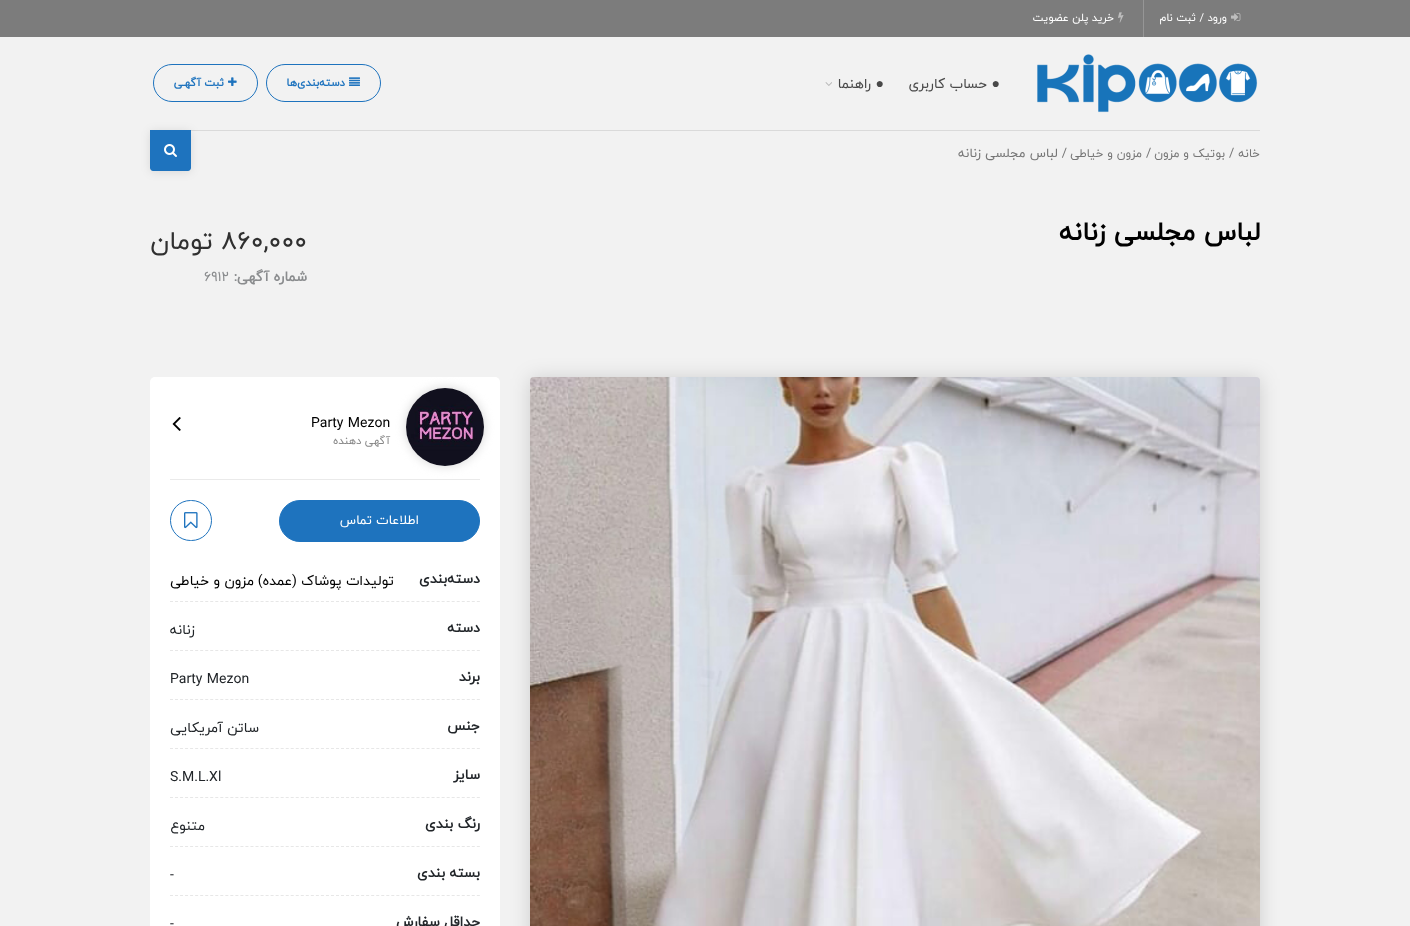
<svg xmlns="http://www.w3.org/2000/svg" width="1410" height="926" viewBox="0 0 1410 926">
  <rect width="100%" height="100%" fill="#f2f2f2"/>
  <path d="M0 0h1410v37H0z" fill="#7c7c7c"/>
  <path d="M1143 0h1v37H1143z" fill="#969696"/>
  <image x="1231" y="13" width="10" height="8" href="img/1.png"/>
  <image x="1118" y="12" width="6" height="11" href="img/2.png"/>
  <path d="M191 130h1069v1H191z" fill="#dadada"/>
  <image x="1037" y="54" width="221" height="59" href="img/3.png"/>
  <image x="825" y="82" width="7" height="4" href="img/4.png"/>
  <rect x="266.5" y="64.5" width="114" height="37" rx="18.5" fill="none" stroke="#1e73be"/>
  <image x="349" y="77" width="11" height="9" href="img/5.png"/>
  <rect x="153.5" y="64.5" width="104" height="37" rx="18.5" fill="none" stroke="#1e73be"/>
  <image x="228" y="77" width="9" height="9" href="img/6.png"/>
  <rect x="150" y="131" width="41" height="41" rx="3" fill="#0000001a" filter="blur(5px)"/>
  <path d="M150 130H191V168C191 169.5 189.5 171 188 171H153C151.5 171 150 169.5 150 168Z" fill="#1e73be"/>
  <image x="164" y="144" width="13" height="13" href="img/7.png"/>
  <rect x="530" y="378" width="730" height="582" rx="4" fill="#00000026" filter="blur(10px)"/>
  <image x="530" y="377" width="730" height="549" href="img/8.png"/>
  <rect x="150" y="377" width="350" height="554" rx="5" fill="#fff"/>
  <path d="M170 479h310v1H170z" fill="#eaeaea"/>
  <rect x="405" y="387" width="80" height="80" rx="40" fill="#ddd" filter="blur(5px)"/>
  <circle cx="445" cy="427" r="39.5" fill="#fff" stroke="#ededed"/>
  <image x="406" y="388" width="78" height="78" href="img/9.png"/>
  <image x="172" y="417" width="9" height="14" href="img/10.png"/>
  <rect x="279.5" y="500.5" width="200" height="41" rx="20.5" fill="#1e73be" stroke="#1e73be"/>
  <rect x="170.5" y="500.5" width="41" height="40" rx="20" fill="none" stroke="#1e73be"/>
  <image x="184" y="512" width="14" height="17" href="img/11.png"/>
  <path d="M170 601.5H480" fill="none" stroke="#e7e7e7" stroke-dasharray="3 2.03"/>
  <path d="M170 650.5H480" fill="none" stroke="#e7e7e7" stroke-dasharray="3 2.03"/>
  <path d="M170 699.5H480" fill="none" stroke="#e7e7e7" stroke-dasharray="3 2.03"/>
  <path d="M170 748.5H480" fill="none" stroke="#e7e7e7" stroke-dasharray="3 2.03"/>
  <path d="M170 797.5H480" fill="none" stroke="#e7e7e7" stroke-dasharray="3 2.03"/>
  <path d="M170 846.5H480" fill="none" stroke="#e7e7e7" stroke-dasharray="3 2.03"/>
  <path d="M170 895.5H480" fill="none" stroke="#e7e7e7" stroke-dasharray="3 2.03"/>
  <g font-family="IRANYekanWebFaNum" font-size="11" direction="rtl" fill="#fff">
    <text x="1227" y="21">ورود / ثبت نام</text>
    <text x="1114" y="21">خرید پلن عضویت</text>
  </g>
  <text x="1000" y="88" font-family="Liberation Serif" font-size="14" direction="rtl" fill="#494949">●</text>
  <text x="987" y="88" font-family="IRANYekanWebFaNum" font-size="14" direction="rtl" fill="#494949">حساب کاربری</text>
  <text x="884" y="88" font-family="Liberation Serif" font-size="14" direction="rtl" fill="#494949">●</text>
  <text x="871" y="88" font-family="IRANYekanWebFaNum" font-size="14" direction="rtl" fill="#494949">راهنما</text>
  <g font-family="IRANYekanWebFaNum" font-size="11" font-weight="bold" direction="rtl" fill="#1e73be">
    <text x="345" y="86">دسته‌بندی‌ها</text>
    <text x="224" y="86">ثبت آگهـی</text>
  </g>
  <text x="1260" y="157" font-family="IRANYekanWebFaNum" font-size="12" direction="rtl" fill="#767676">خانه</text>
  <text x="1229" y="157" font-family="IRANYekanWebFaNum" font-size="12.9" fill="#767676">/</text>
  <text x="1225" y="157" font-family="IRANYekanWebFaNum" font-size="12" direction="rtl" fill="#767676">بوتیک و مزون</text>
  <text x="1146" y="157" font-family="IRANYekanWebFaNum" font-size="12.9" fill="#767676">/</text>
  <text x="1142" y="157" font-family="IRANYekanWebFaNum" font-size="12" direction="rtl" fill="#767676">مزون و خیاطی</text>
  <text x="1067" y="157" font-family="IRANYekanWebFaNum" font-size="12.9" direction="rtl" fill="#767676">/ لباس مجلسی زنانه</text>
  <text x="1260" y="240" font-family="IRANYekanWebFaNum" font-size="26" font-weight="bold" direction="rtl" fill="#000">لباس مجلسی زنانه</text>
  <text x="221" y="249" font-family="IRANYekanWebFaNum" font-size="26" fill="#303030">860,000</text>
  <text x="213" y="249" font-family="IRANYekanWebFaNum" font-size="26" direction="rtl" fill="#303030">تومان</text>
  <text x="307" y="281" font-family="IRANYekanWebFaNum" font-size="14" font-weight="bold" direction="rtl" fill="#8a8c8e">شماره آگهی:</text>
  <text x="204" y="281" font-family="IRANYekanWebFaNum" font-size="14" fill="#8a8c8e">6912</text>
  <text x="311" y="427" font-family="IRANYekanWebFaNum" font-size="14" fill="#000">Party Mezon</text>
  <text x="390" y="444" font-family="IRANYekanWebFaNum" font-size="11" direction="rtl" fill="#888">آگهی دهنده</text>
  <text x="419" y="524" font-family="IRANYekanWebFaNum" font-size="13" direction="rtl" fill="#fff">اطلاعات تماس</text>
  <text x="480" y="583" font-family="IRANYekanWebFaNum" font-size="14" font-weight="bold" direction="rtl" fill="#212529">دسته‌بندی</text>
  <g font-family="IRANYekanWebFaNum" font-size="14" direction="rtl" fill="#000">
    <text x="394" y="585">تولیدات پوشاک (عمده)</text>
    <text x="254" y="585">مزون و خیاطی</text>
  </g>
  <text x="480" y="632" font-family="IRANYekanWebFaNum" font-size="14" font-weight="bold" direction="rtl" fill="#212529">دسته</text>
  <text x="195" y="634" font-family="IRANYekanWebFaNum" font-size="14" direction="rtl" fill="#212529">زنانه</text>
  <text x="480" y="681" font-family="IRANYekanWebFaNum" font-size="14" font-weight="bold" direction="rtl" fill="#212529">برند</text>
  <text x="170" y="683" font-family="IRANYekanWebFaNum" font-size="14" fill="#212529">Party Mezon</text>
  <text x="480" y="730" font-family="IRANYekanWebFaNum" font-size="14" font-weight="bold" direction="rtl" fill="#212529">جنس</text>
  <text x="259" y="732" font-family="IRANYekanWebFaNum" font-size="14" direction="rtl" fill="#212529">ساتن آمریکایی</text>
  <text x="480" y="779" font-family="IRANYekanWebFaNum" font-size="14" font-weight="bold" direction="rtl" fill="#212529">سایز</text>
  <text x="170" y="781" font-family="IRANYekanWebFaNum" font-size="14" fill="#212529">S.M.L.Xl</text>
  <text x="480" y="828" font-family="IRANYekanWebFaNum" font-size="14" font-weight="bold" direction="rtl" fill="#212529">رنگ بندی</text>
  <text x="205" y="830" font-family="IRANYekanWebFaNum" font-size="14" direction="rtl" fill="#212529">متنوع</text>
  <text x="480" y="877" font-family="IRANYekanWebFaNum" font-size="14" font-weight="bold" direction="rtl" fill="#212529">بسته بندی</text>
  <text x="170" y="879" font-family="IRANYekanWebFaNum" font-size="14" fill="#212529">-</text>
  <text x="480" y="926" font-family="IRANYekanWebFaNum" font-size="14" font-weight="bold" direction="rtl" fill="#212529">حداقل سفارش</text>
  <text x="170" y="928" font-family="IRANYekanWebFaNum" font-size="14" fill="#212529">-</text>
</svg>
